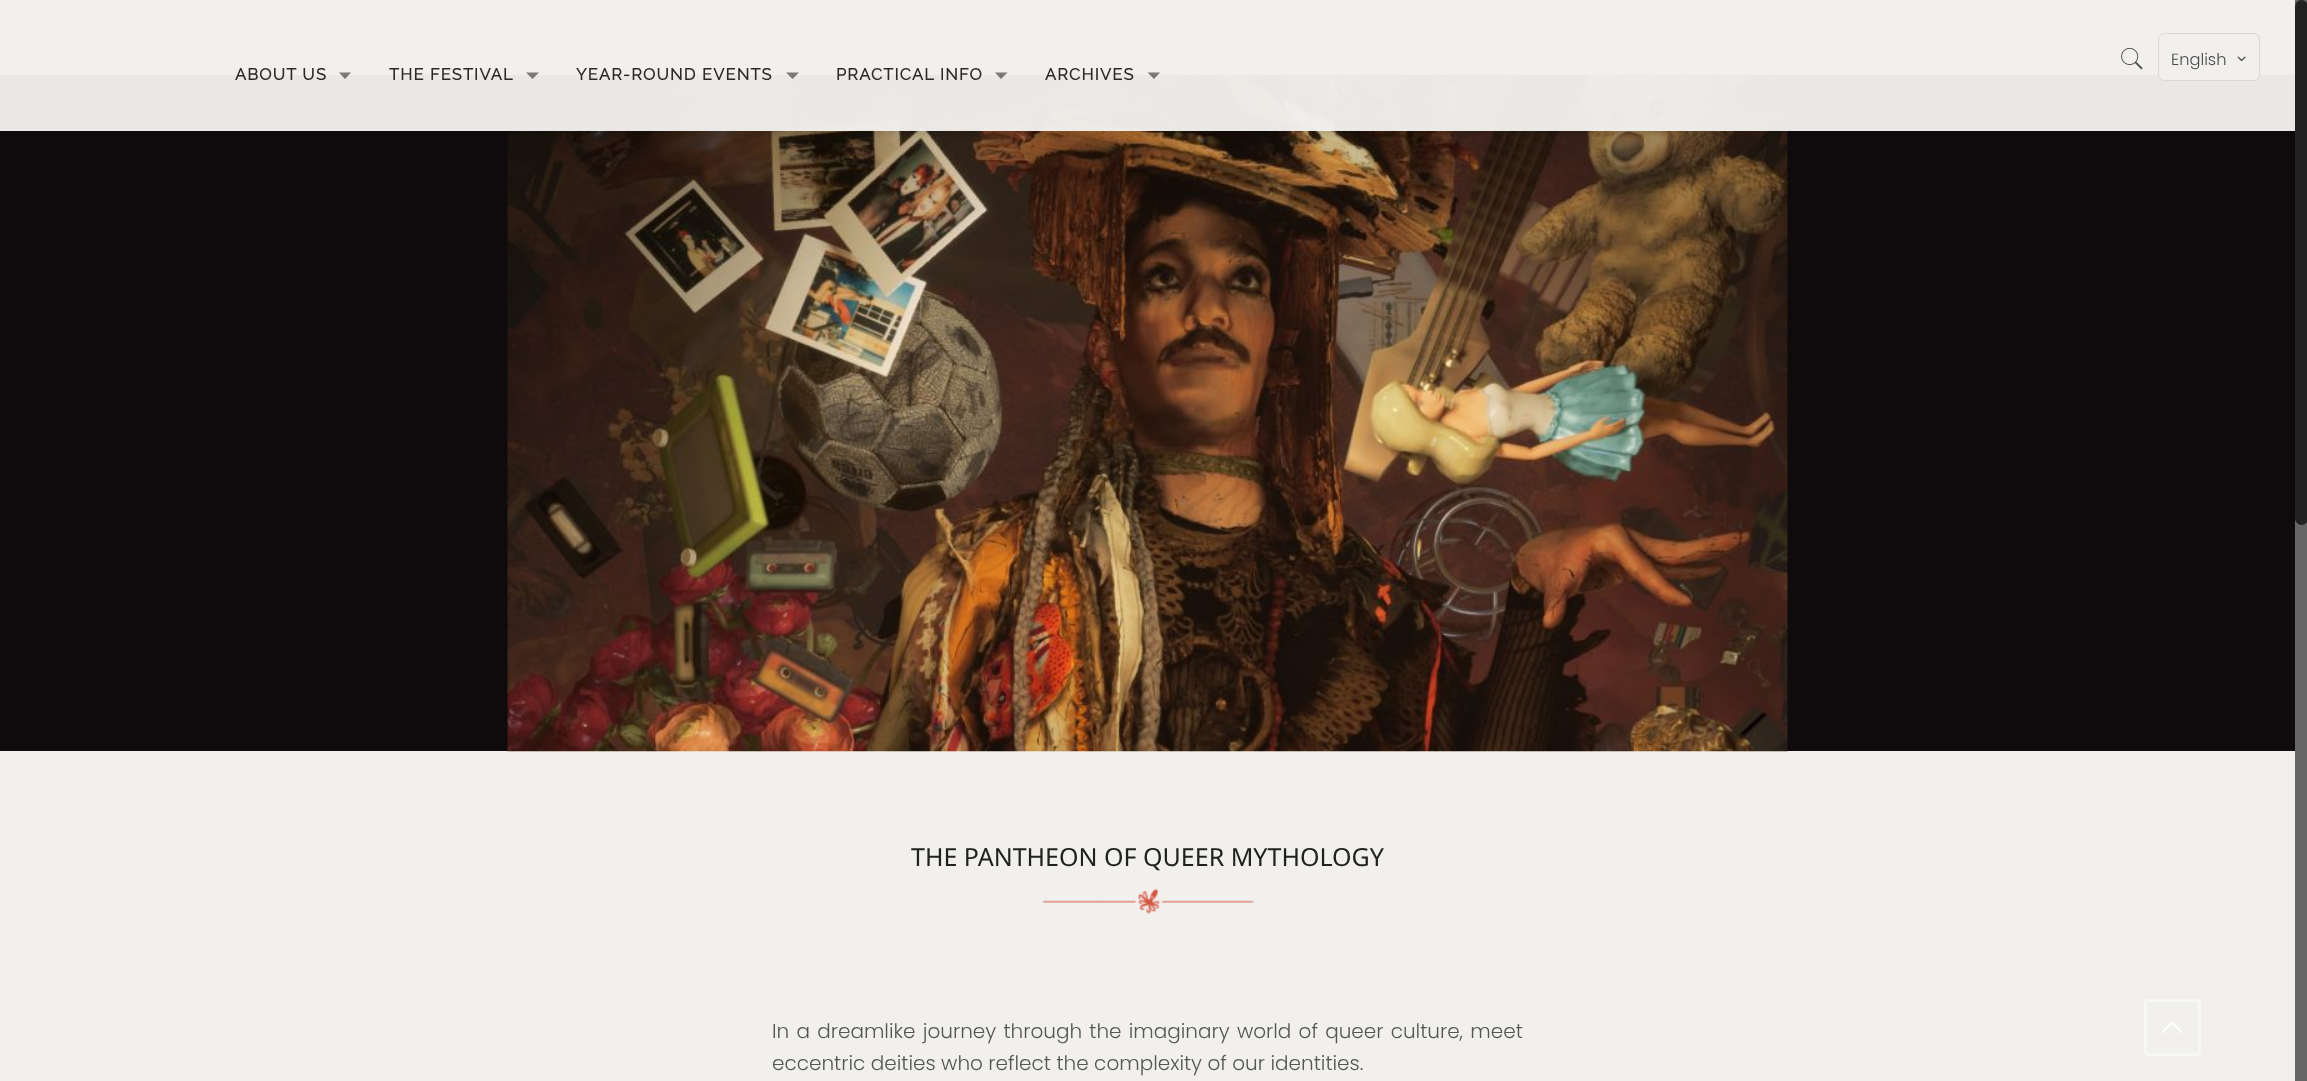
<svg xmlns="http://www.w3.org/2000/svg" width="2307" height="1081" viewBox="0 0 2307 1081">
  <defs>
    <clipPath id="clip1"><path d="M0 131h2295v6H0z"/></clipPath>
  </defs>
  <rect width="100%" height="100%" fill="#f1f0ed"/>
  <path d="M0 75h2295v676H0z" fill="#0f0b0d"/>
  <image x="507" y="75" width="1281" height="677" href="img/3.png"/>
  <g clip-path="url(#clip1)">
    <path d="M0 3h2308v131H0z" fill="#0000001a" filter="blur(3px)"/>
  </g>
  <path d="M0 75h2295v56H0z" fill="#f1f0edf7"/>
  <image x="2121" y="47" width="22" height="23" href="img/1.png"/>
  <rect x="2158.5" y="33.5" width="101" height="47" rx="5.5" fill="#f1f0edf7" stroke="#dad9d6"/>
  <image x="2237" y="56" width="9" height="6" href="img/2.png"/>
  <path d="M339 72.5H351L345 79Z" fill="#28222294"/>
  <path d="M526 72.5H539L532.5 79Z" fill="#28222294"/>
  <path d="M786 72.5H799L792.5 79Z" fill="#28222294"/>
  <path d="M995 72.5H1007.5L1001 79Z" fill="#28222294"/>
  <path d="M1147.5 72.5H1160L1154 79Z" fill="#28222294"/>
  <image x="1042" y="888" width="212" height="26" href="img/4.png"/>
  <path d="M2295 0h12v1081H2295z" fill="#666"/>
  <rect x="2295" width="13" height="525" rx="6.5" fill="#222"/>
  <rect x="2145.5" y="1000.5" width="54" height="54" rx="2.5" fill="none" stroke="#f7f7f7" stroke-width="3"/>
  <image x="2161" y="1022" width="22" height="11" href="img/5.png"/>
  <text x="2171" y="65" font-family="Poppins" font-size="16.25" font-weight="300" fill="#494949">English</text>
  <g font-family="Raleway" font-size="16.25" font-weight="bold" letter-spacing="1.25" fill="#2e2828">
    <text x="235" y="80">ABOUT US</text>
    <text x="389" y="80">THE FESTIVAL</text>
    <text x="576" y="80">YEAR-ROUND EVENTS</text>
    <text x="836" y="80">PRACTICAL INFO</text>
    <text x="1045" y="80">ARCHIVES</text>
  </g>
  <text x="911" y="866" font-family="Noto Sans" font-size="25" fill="#212121">THE PANTHEON OF QUEER MYTHOLOGY</text>
  <g font-family="Poppins" font-size="20" font-weight="300" fill="#555">
    <text x="772" y="1038" word-spacing="1.75">In a dreamlike journey through the imaginary world of queer culture, meet</text>
    <text x="772" y="1070">eccentric deities who reflect the complexity of our identities.</text>
  </g>
</svg>
